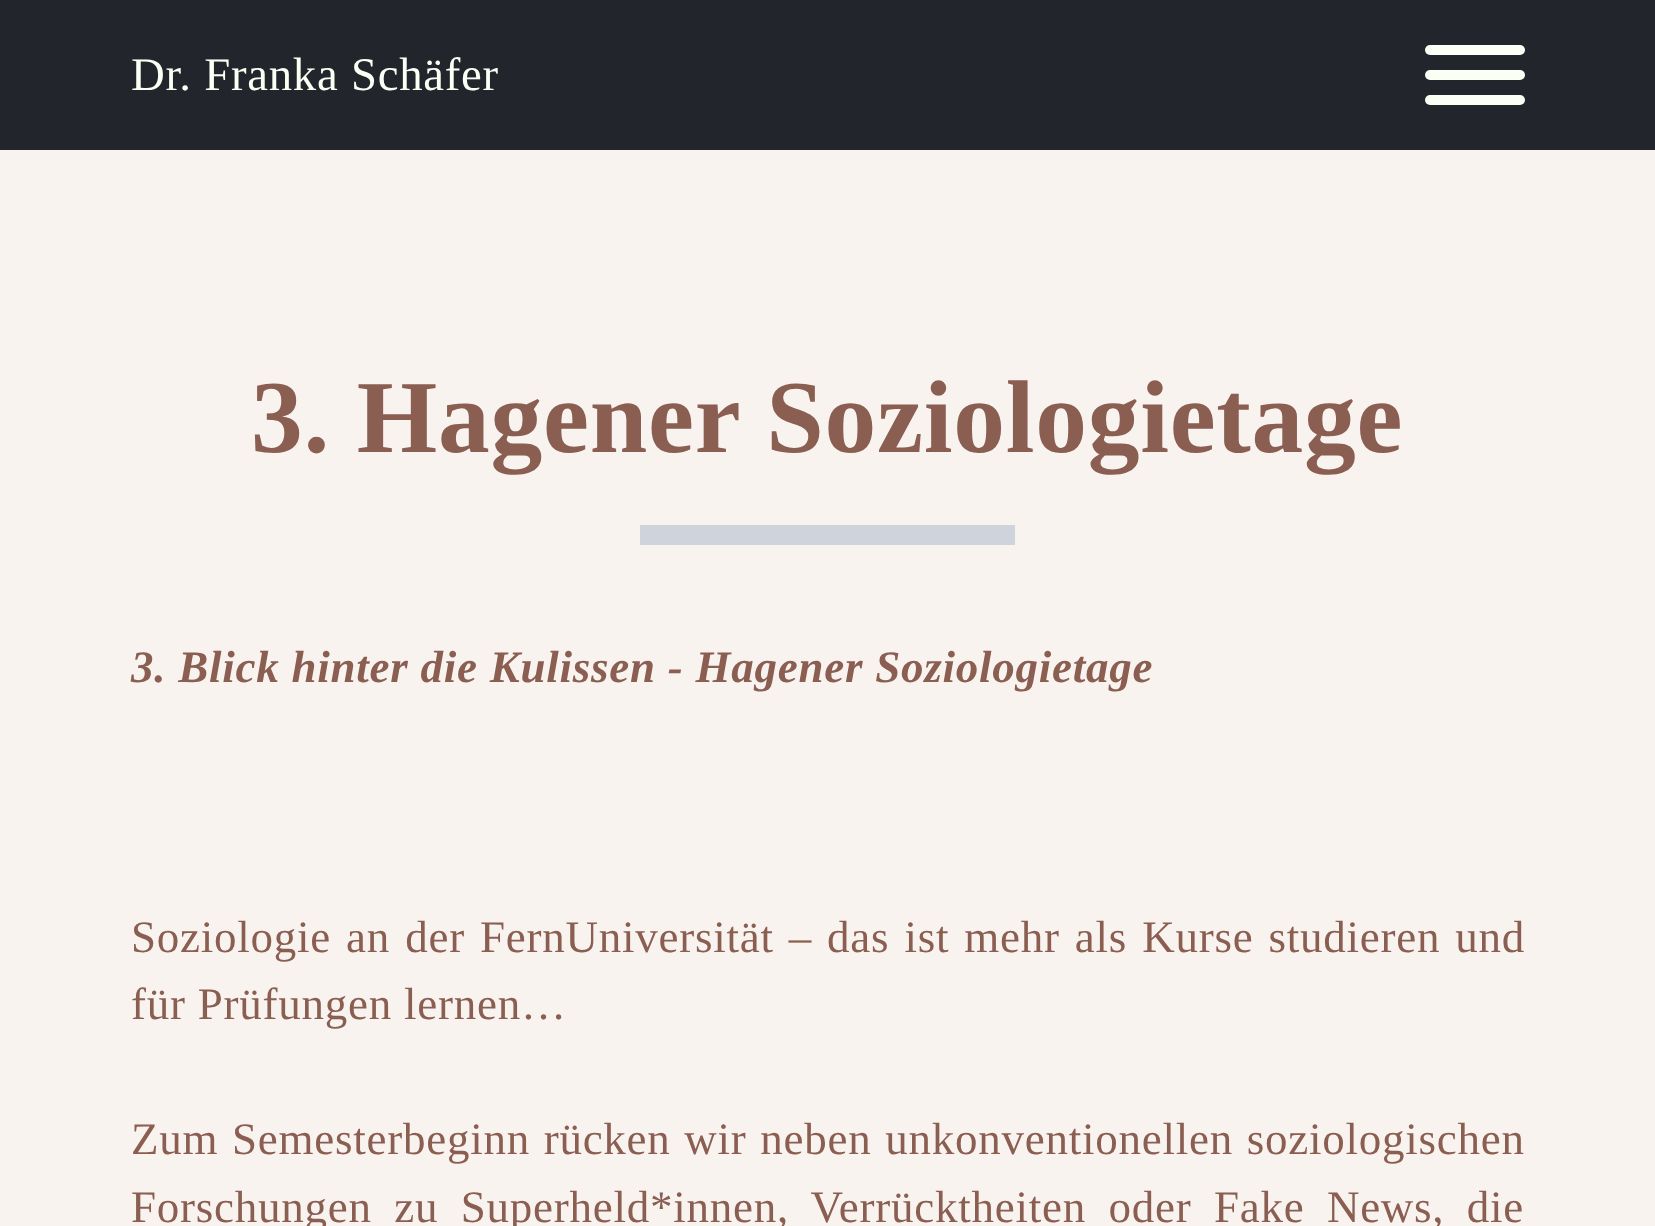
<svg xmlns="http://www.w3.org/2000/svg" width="1655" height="1226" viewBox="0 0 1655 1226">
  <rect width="100%" height="100%" fill="#f9f3f0"/>
  <path d="M0 0h1655v150H0z" fill="#22252c"/>
  <rect x="1425" y="70" width="100" height="10" rx="5" fill="#fcfff4"/>
  <rect x="1425" y="45" width="100" height="10" rx="5" fill="#fcfff4"/>
  <rect x="1425" y="95" width="100" height="10" rx="5" fill="#fcfff4"/>
  <path d="M640 525h375v20H640z" fill="#cfd4dc"/>
  <text x="131" y="90" font-family="Liberation Serif" font-size="46.75" letter-spacing="0.75" fill="#fcfff4">Dr. Franka Schäfer</text>
  <text x="251" y="452" font-family="Liberation Serif" font-size="103.5" font-weight="bold" letter-spacing="0.75" fill="#8a5e51">3. Hagener Soziologietage</text>
  <text x="131" y="682" font-family="Liberation Serif" font-size="45" font-weight="bold" font-style="italic" letter-spacing="0.75" fill="#8a5e51">3. Blick hinter die Kulissen - Hagener Soziologietage</text>
  <g font-family="Liberation Serif" font-size="45" letter-spacing="0.75" fill="#8a5e51">
    <text x="131" y="952" word-spacing="3.1">Soziologie an der FernUniversität – das ist mehr als Kurse studieren und</text>
    <text x="131" y="1019">für Prüfungen lernen…</text>
    <text x="131" y="1154" word-spacing="1.75">Zum Semesterbeginn rücken wir neben unkonventionellen soziologischen</text>
    <text x="131" y="1222" word-spacing="10.5">Forschungen zu Superheld*innen, Verrücktheiten oder Fake News, die</text>
  </g>
</svg>
